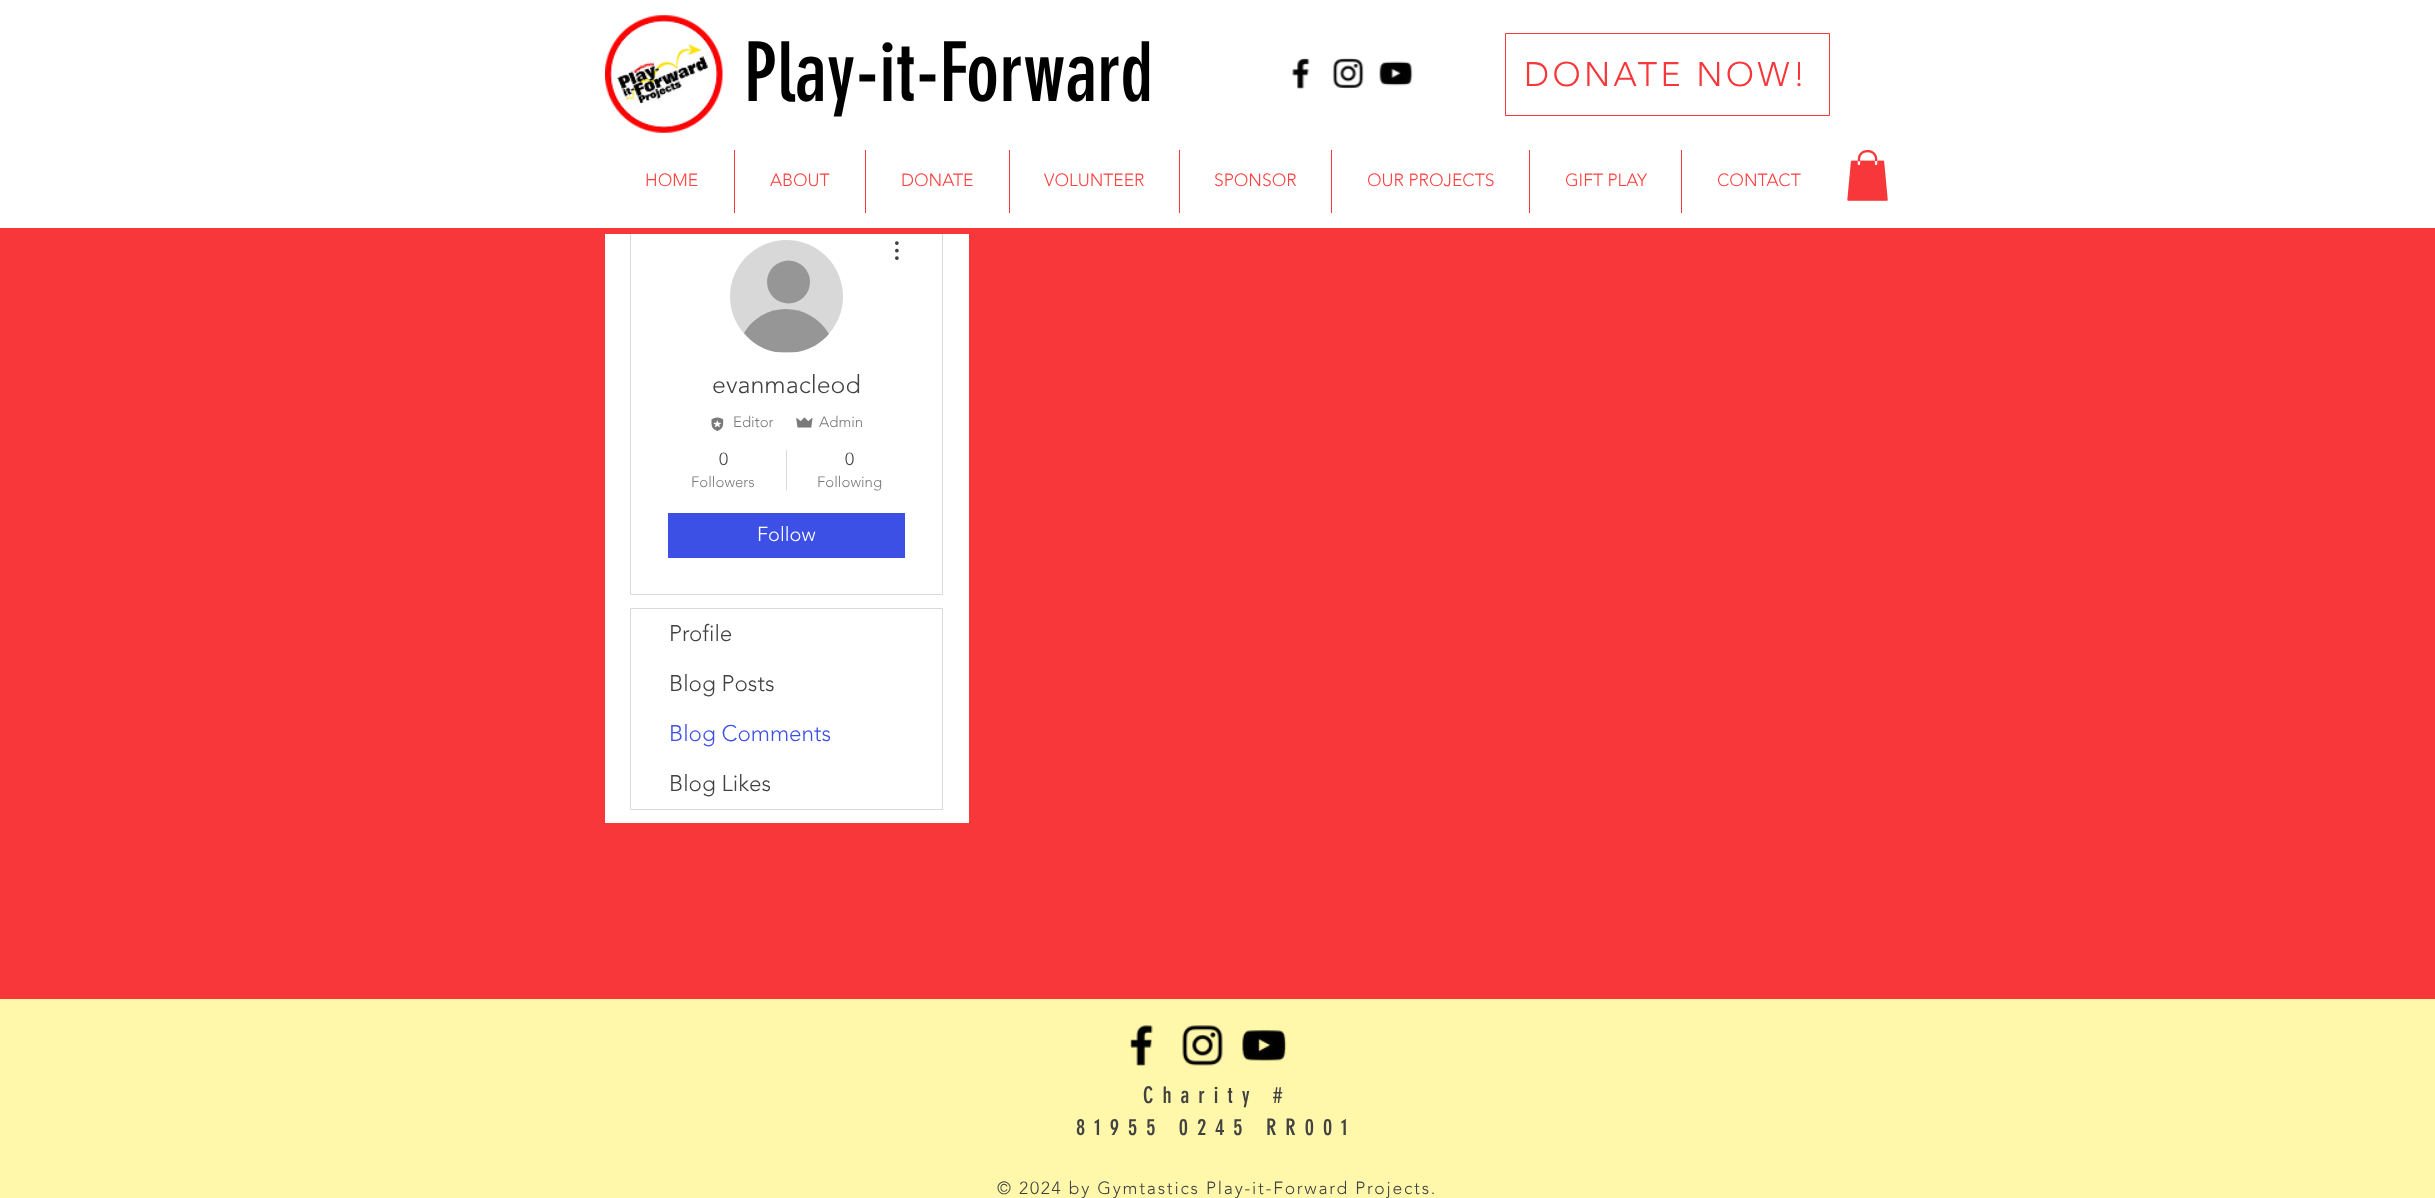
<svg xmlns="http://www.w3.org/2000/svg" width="2435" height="1198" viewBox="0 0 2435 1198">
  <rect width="100%" height="100%" fill="#f7373a"/>
  <path d="M605 234h364v589H605z" fill="#fff"/>
  <path d="M630.5 203.5h312v391H630.5z" fill="none" stroke="#d9d9d9"/>
  <path d="M0 0h2435v228H0z" fill="#fff"/>
  <path d="M630 228h313v6H630z" fill="#f7373a"/>
  <image x="605" y="15" width="118" height="118" href="img/1.png"/>
  <image x="1292" y="58" width="18" height="32" href="img/2.png"/>
  <image x="1332" y="58" width="32" height="31" href="img/3.png"/>
  <image x="1379" y="61" width="34" height="25" href="img/4.png"/>
  <path d="M1505.5 33.5h324v82H1505.5z" fill="none" stroke="#f7373a"/>
  <path d="M734 150h1v63H734z" fill="#f7373a"/>
  <path d="M865 150h1v63H865z" fill="#f7373a"/>
  <path d="M1009 150h1v63H1009z" fill="#f7373a"/>
  <path d="M1179 150h1v63H1179z" fill="#f7373a"/>
  <path d="M1331 150h1v63H1331z" fill="#f7373a"/>
  <path d="M1529 150h1v63H1529z" fill="#f7373a"/>
  <path d="M1681 150h1v63H1681z" fill="#f7373a"/>
  <image x="1847" y="150" width="41" height="51" href="img/5.png"/>
  <circle cx="786.5" cy="296.5" r="56.5" fill="#d8d8d8"/>
  <circle cx="788.5" cy="282" r="21.5" fill="#969696"/>
  <path d="M776 352C763 350 752 343 744 333C763 301 809 301 829 334C821 343 810 350 797 352Z" fill="#969696"/>
  <image x="895" y="241" width="4" height="19" href="img/6.png"/>
  <image x="711" y="417" width="13" height="14" href="img/7.png"/>
  <image x="796" y="417" width="17" height="11" href="img/8.png"/>
  <path d="M786 450h1v40H786z" fill="#d9d9d9"/>
  <path d="M668 513h237v45H668z" fill="#3c50e6"/>
  <path d="M630.5 608.5h312v201H630.5z" fill="none" stroke="#d9d9d9"/>
  <path d="M0 999h2435v199H0z" fill="#fff7aa"/>
  <image x="1130" y="1025" width="23" height="41" href="img/9.png"/>
  <image x="1182" y="1025" width="41" height="41" href="img/10.png"/>
  <image x="1242" y="1030" width="45" height="31" href="img/11.png"/>
  <text x="744" y="101" font-family="'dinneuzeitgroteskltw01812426'" font-size="81.25" fill="#000">Play-it-Forward</text>
  <text x="1524" y="86" font-family="'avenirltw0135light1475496'" font-size="33.75" font-weight="300" letter-spacing="3.4" fill="#f7373a">DONATE NOW!</text>
  <g font-family="'avenirltw0135light1475496'" font-size="17.5" font-weight="300" fill="#ff4040">
    <text x="645" y="186">HOME</text>
    <text x="770" y="186">ABOUT</text>
    <text x="901" y="186">DONATE</text>
    <text x="1044" y="186">VOLUNTEER</text>
    <text x="1214" y="186">SPONSOR</text>
    <text x="1367" y="186">OUR PROJECTS</text>
    <text x="1565" y="186">GIFT PLAY</text>
    <text x="1717" y="186">CONTACT</text>
  </g>
  <text x="712" y="393" font-family="'avenirltw0135light1475496'" font-size="25" font-weight="300" fill="#414141">evanmacleod</text>
  <g font-family="'avenirltw0135light1475496'" font-size="15" font-weight="300" fill="#7a7a7a">
    <text x="733" y="427">Editor</text>
    <text x="819" y="427">Admin</text>
  </g>
  <text x="719" y="465" font-family="'avenirltw0135light1475496'" font-size="17.5" font-weight="300" fill="#414141">0</text>
  <text x="691" y="487" font-family="'avenirltw0135light1475496'" font-size="15" font-weight="300" fill="#7a7a7a">Followers</text>
  <text x="845" y="465" font-family="'avenirltw0135light1475496'" font-size="17.5" font-weight="300" fill="#414141">0</text>
  <text x="817" y="487" font-family="'avenirltw0135light1475496'" font-size="15" font-weight="300" fill="#7a7a7a">Following</text>
  <text x="757" y="541" font-family="'avenirltw0135light1475496'" font-size="20" font-weight="300" fill="#fff">Follow</text>
  <g font-family="'avenirltw0135light1475496'" font-size="22.5" font-weight="300" fill="#414141">
    <text x="669" y="641">Profile</text>
    <text x="669" y="691">Blog Posts</text>
  </g>
  <text x="669" y="741" font-family="'avenirltw0135light1475496'" font-size="22.5" font-weight="300" fill="#3c50e6">Blog Comments</text>
  <text x="669" y="791" font-family="'avenirltw0135light1475496'" font-size="22.5" font-weight="300" fill="#414141">Blog Likes</text>
  <g font-family="'dinneuzeitgroteskltw01812426'" font-size="22.5" letter-spacing="9" fill="#414141">
    <text x="1143" y="1103">Charity #</text>
    <text x="1076" y="1135">81955 0245 RR001</text>
  </g>
  <text x="997" y="1194" font-family="'avenirltw0135light1475496'" font-size="17.5" font-weight="300" letter-spacing="1.75" fill="#414141">© 2024 by Gymtastics Play-it-Forward Projects.</text>
</svg>
